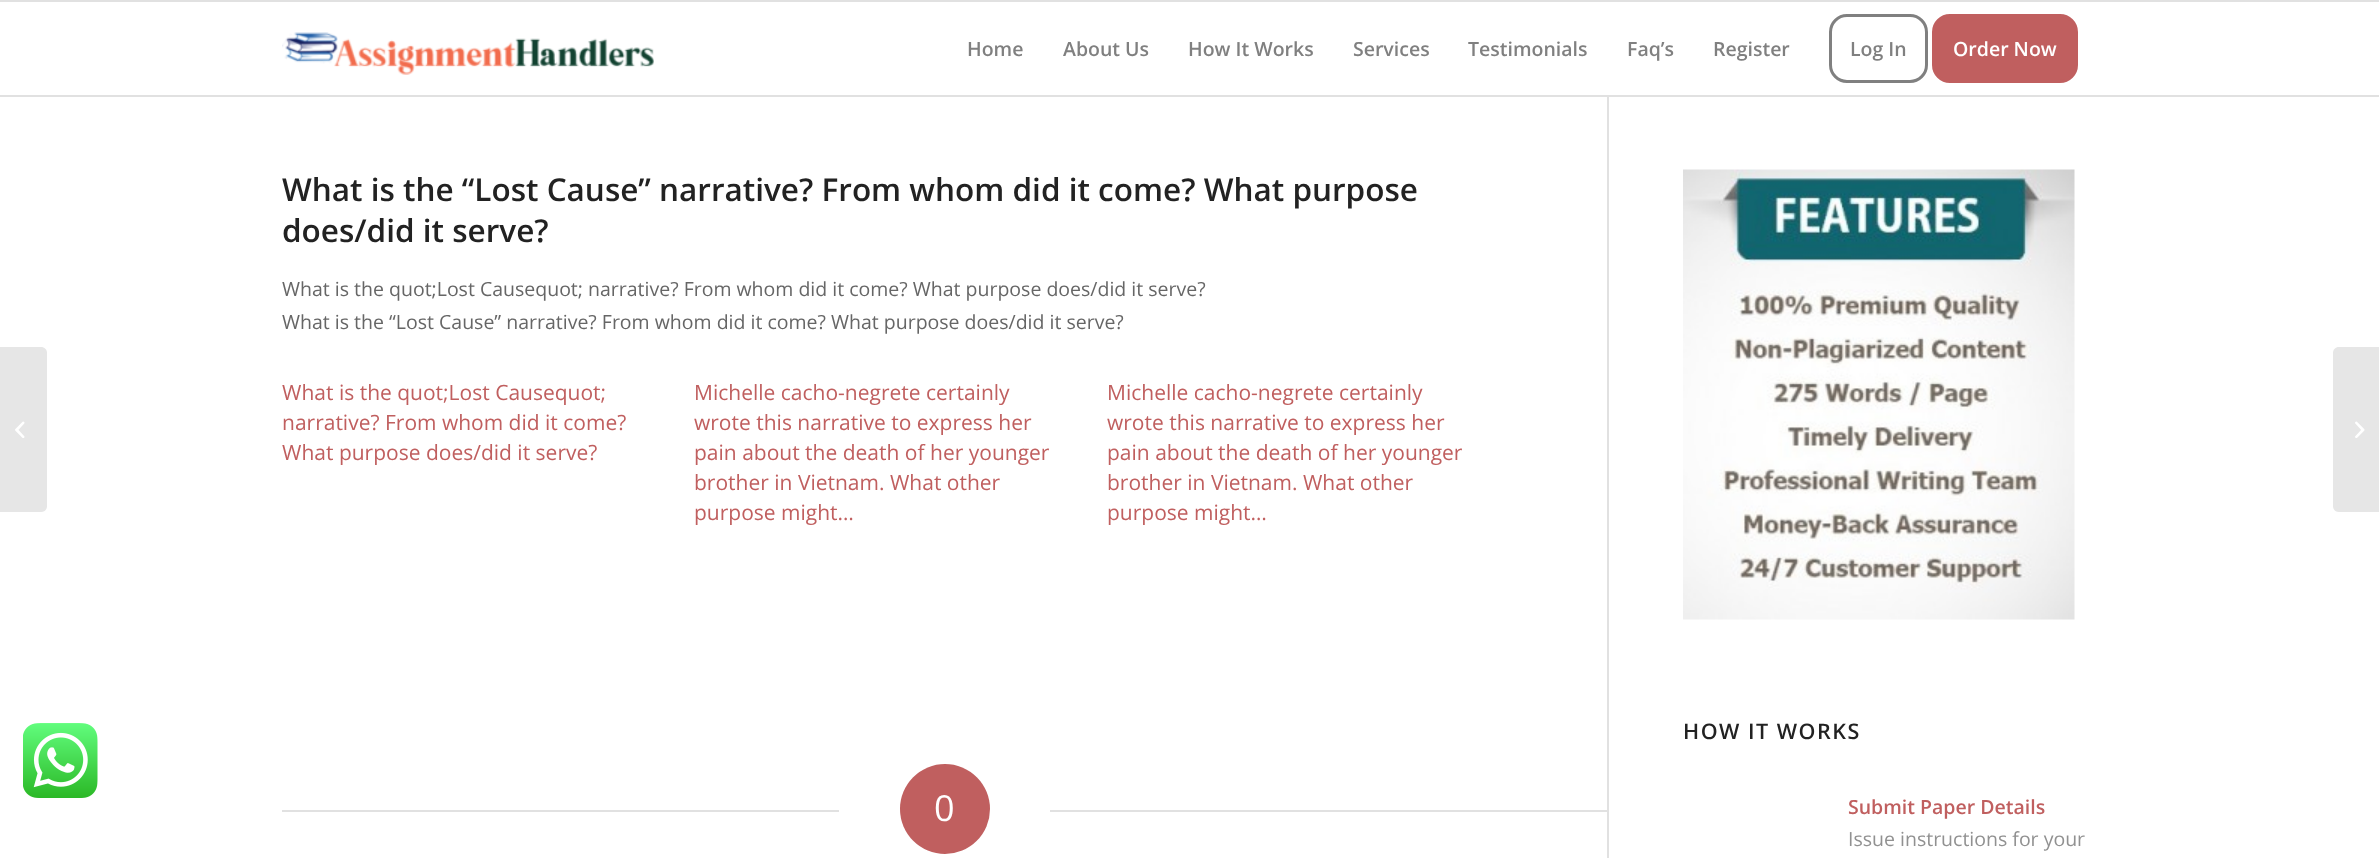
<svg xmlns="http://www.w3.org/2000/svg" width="2379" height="858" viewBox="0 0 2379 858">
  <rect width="100%" height="100%" fill="#fff"/>
  <image x="23" y="723" width="75" height="75" href="img/1.png"/>
  <path d="M0 0h2379v2H0z" fill="#e1e1e1"/>
  <path d="M1607 95h2v763H1607z" fill="#e1e1e1"/>
  <path d="M0 95h2379v2H0z" fill="#e1e1e1"/>
  <image x="282" y="32" width="372" height="43" href="img/2.png"/>
  <rect x="1830.5" y="15.5" width="96" height="66" rx="16.5" fill="none" stroke="#808080" stroke-width="3"/>
  <rect x="1933.5" y="15.5" width="143" height="66" rx="16.5" fill="#c05f5f" stroke="#c05f5f" stroke-width="3"/>
  <path d="M0 347H41C44.5 347 47 349.5 47 353V506C47 509.5 44.5 512 41 512H0Z" fill="#e6e6e6"/>
  <image x="15" y="421" width="10" height="17" href="img/3.png"/>
  <path d="M282 810h557v2H282z" fill="#e1e1e1"/>
  <circle cx="945" cy="809" r="45" fill="#c05f5f"/>
  <path d="M1050 810h557v2H1050z" fill="#e1e1e1"/>
  <image x="1683" y="169" width="392" height="451" href="img/4.png"/>
  <path d="M2339 347H2379V512H2339C2335.5 512 2333 509.5 2333 506V353C2333 349.5 2335.5 347 2339 347Z" fill="#e6e6e6"/>
  <image x="2355" y="421" width="10" height="17" href="img/5.png"/>
  <g font-family="Open Sans" font-size="19.5" font-weight="600" fill="#808080">
    <text x="967" y="56">Home</text>
    <text x="1063" y="56">About Us</text>
    <text x="1188" y="56">How It Works</text>
    <text x="1353" y="56">Services</text>
    <text x="1468" y="56">Testimonials</text>
    <text x="1627" y="56">Faq’s</text>
    <text x="1713" y="56">Register</text>
    <text x="1850" y="56">Log In</text>
  </g>
  <text x="1953" y="56" font-family="Open Sans" font-size="19.5" font-weight="600" fill="#fff">Order Now</text>
  <g font-family="Open Sans" font-size="31.5" font-weight="600" fill="#222">
    <text x="282" y="201">What is the “Lost Cause” narrative? From whom did it come? What purpose</text>
    <text x="282" y="242">does/did it serve?</text>
  </g>
  <g font-family="Open Sans" font-size="19.5" fill="#666">
    <text x="282" y="296">What is the quot;Lost Causequot; narrative? From whom did it come? What purpose does/did it serve?</text>
    <text x="282" y="329">What is the “Lost Cause” narrative? From whom did it come? What purpose does/did it serve?</text>
  </g>
  <g font-family="Open Sans" font-size="21" fill="#c05f5f">
    <text x="282" y="400">What is the quot;Lost Causequot;</text>
    <text x="282" y="430">narrative? From whom did it come?</text>
    <text x="282" y="460">What purpose does/did it serve?</text>
    <text x="694" y="400">Michelle cacho-negrete certainly</text>
    <text x="694" y="430">wrote this narrative to express her</text>
    <text x="694" y="460">pain about the death of her younger</text>
    <text x="694" y="490">brother in Vietnam. What other</text>
    <text x="694" y="520">purpose might…</text>
    <text x="1107" y="400">Michelle cacho-negrete certainly</text>
    <text x="1107" y="430">wrote this narrative to express her</text>
    <text x="1107" y="460">pain about the death of her younger</text>
    <text x="1107" y="490">brother in Vietnam. What other</text>
    <text x="1107" y="520">purpose might…</text>
  </g>
  <text x="934" y="821" font-family="Open Sans" font-size="36" fill="#fff">0</text>
  <text x="1683" y="739" font-family="Open Sans" font-size="21.5" font-weight="600" letter-spacing="1.5" fill="#222">HOW IT WORKS</text>
  <text x="1848" y="814" font-family="Open Sans" font-size="19.5" font-weight="600" fill="#c05f5f">Submit Paper Details</text>
  <text x="1848" y="846" font-family="Open Sans" font-size="19.5" fill="#919191">Issue instructions for your</text>
</svg>
